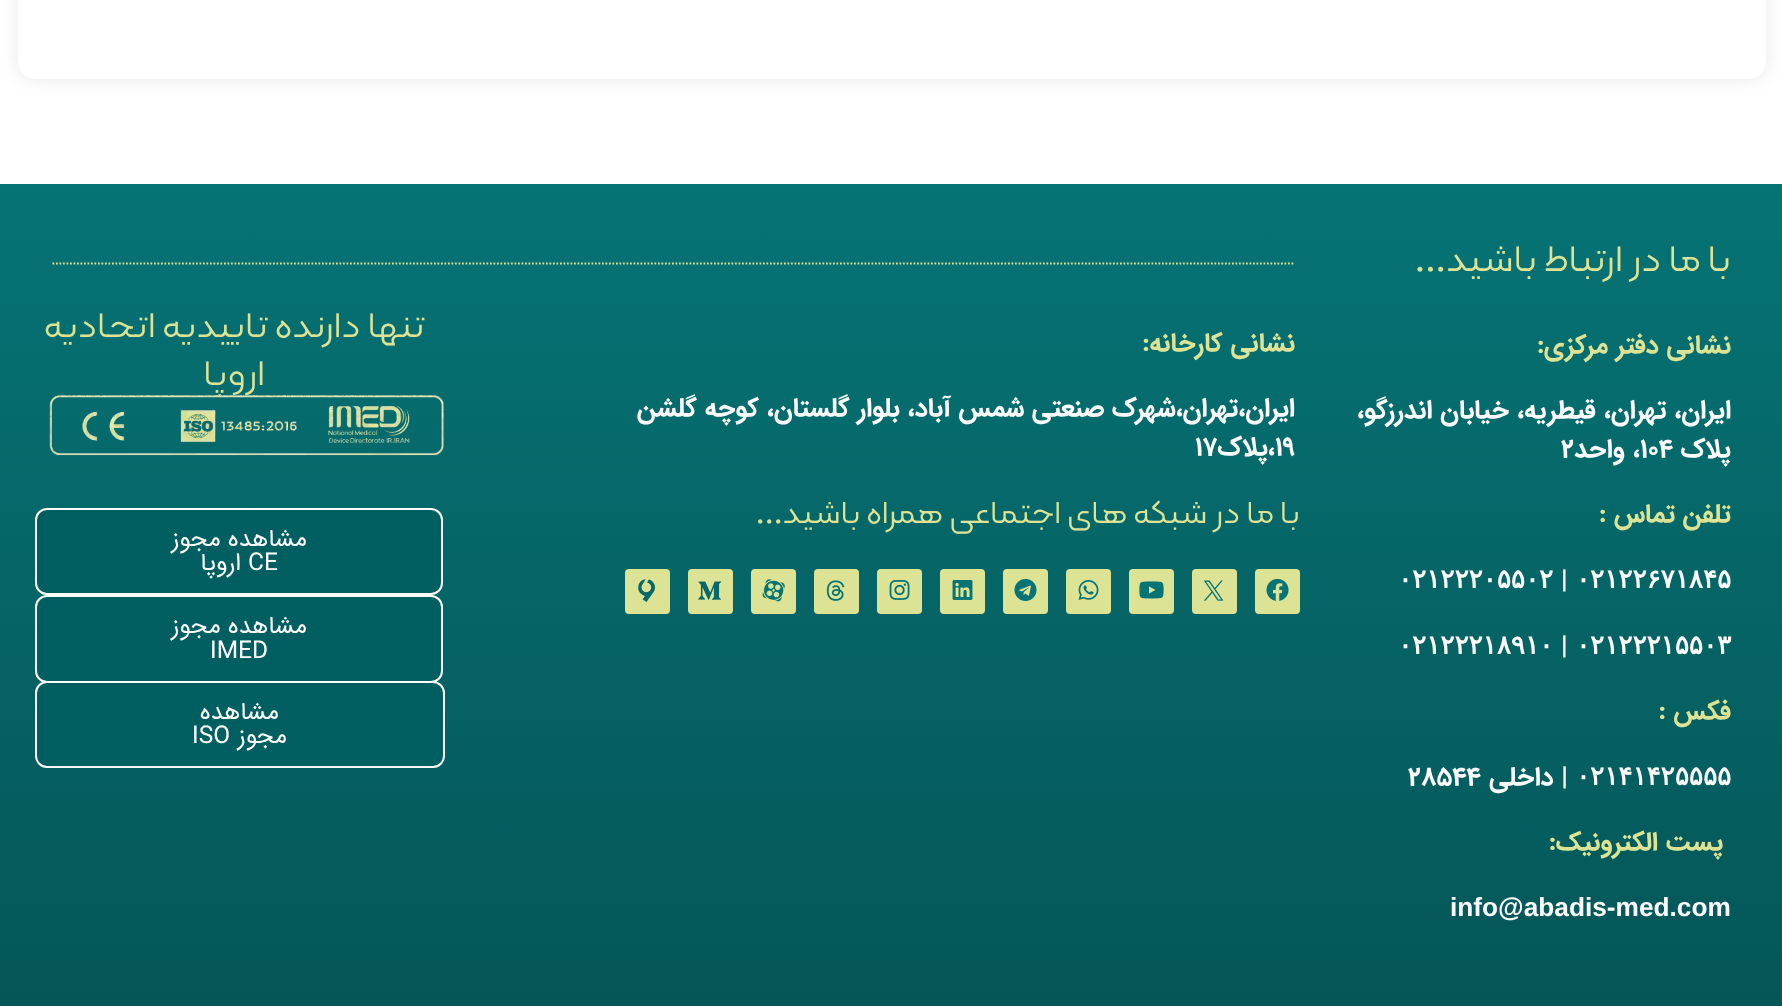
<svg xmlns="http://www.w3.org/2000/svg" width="1782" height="1006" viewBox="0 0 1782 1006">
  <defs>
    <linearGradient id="g1" gradientUnits="userSpaceOnUse" x1="892" y1="184" x2="892" y2="1006"><stop offset="0" stop-color="#067375"/><stop offset="1" stop-color="#055657"/></linearGradient>
  </defs>
  <rect width="100%" height="100%" fill="#fff"/>
  <rect x="18" y="-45" width="1748" height="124" rx="18" fill="#00000017" filter="blur(9px)"/>
  <rect x="18" y="-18" width="1748" height="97" rx="18" fill="#fff"/>
  <path d="M0 184h1782v822H0z" fill="url(#g1)"/>
  <path d="M52.5 263.5H1295" fill="none" stroke="#dce395" stroke-width="1.8" stroke-dasharray="1.75 1.75"/>
  <rect x="36" y="509" width="406" height="85" rx="11" fill="#015f61" stroke="#fff" stroke-width="2"/>
  <rect x="1255" y="569" width="45" height="45" rx="4" fill="#dce395"/>
  <image x="1266" y="578" width="23" height="23" href="img/2.png"/>
  <rect x="1192" y="569" width="45" height="45" rx="4" fill="#dce395"/>
  <image x="1203" y="580" width="21" height="21" href="img/3.png"/>
  <rect x="1129" y="569" width="45" height="45" rx="4" fill="#dce395"/>
  <image x="1139" y="581" width="25" height="18" href="img/4.png"/>
  <rect x="1066" y="569" width="45" height="45" rx="4" fill="#dce395"/>
  <image x="1078" y="580" width="21" height="20" href="img/5.png"/>
  <rect x="1003" y="569" width="45" height="45" rx="4" fill="#dce395"/>
  <image x="1014" y="578" width="23" height="23" href="img/6.png"/>
  <rect x="940" y="569" width="45" height="45" rx="4" fill="#dce395"/>
  <image x="952" y="580" width="21" height="20" href="img/7.png"/>
  <rect x="877" y="569" width="45" height="45" rx="4" fill="#dce395"/>
  <image x="889" y="580" width="21" height="20" href="img/8.png"/>
  <rect x="814" y="569" width="45" height="45" rx="4" fill="#dce395"/>
  <image x="826" y="580" width="19" height="21" href="img/9.png"/>
  <rect x="751" y="569" width="45" height="45" rx="4" fill="#dce395"/>
  <image x="762" y="579" width="23" height="23" href="img/10.png"/>
  <rect x="688" y="569" width="45" height="45" rx="4" fill="#dce395"/>
  <image x="698" y="581" width="23" height="19" href="img/11.png"/>
  <rect x="625" y="569" width="45" height="45" rx="4" fill="#dce395"/>
  <image x="638" y="579" width="17" height="23" href="img/12.png"/>
  <rect x="36" y="596" width="406" height="86" rx="11" fill="#015f61" stroke="#fff" stroke-width="2"/>
  <rect x="36" y="682" width="408" height="85" rx="11" fill="#015f61" stroke="#fff" stroke-width="2"/>
  <text x="1731" y="271" font-family="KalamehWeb" font-size="49" direction="rtl" fill="#dce395">با ما در ارتباط باشید...</text>
  <text x="1731" y="353" font-family="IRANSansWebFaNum" font-size="26.25" font-weight="bold" direction="rtl" fill="#dce395">نشانی دفتر مرکزی:</text>
  <g font-family="IRANSansWebFaNum" font-size="26.25" font-weight="bold" direction="rtl" fill="#fff">
    <text x="1731" y="418">ایران، تهران، قیطریه، خیابان اندرزگو،</text>
    <text x="1731" y="457">پلاک</text>
  </g>
  <text x="1640" y="457" font-family="IRANSansWebFaNum" font-size="26.25" font-weight="bold" fill="#fff">۱۰۴</text>
  <text x="1640" y="457" font-family="IRANSansWebFaNum" font-size="26.25" font-weight="bold" direction="rtl" fill="#fff">، واحد</text>
  <text x="1561" y="457" font-family="IRANSansWebFaNum" font-size="26.25" font-weight="bold" fill="#fff">۲</text>
  <text x="1731" y="522" font-family="IRANSansWebFaNum" font-size="26.25" font-weight="bold" direction="rtl" fill="#dce395">تلفن تماس :</text>
  <text x="1576" y="588" font-family="DejaVu Sans" font-size="26.25" font-weight="bold" fill="#fff">۰۲۱۲۲۶۷۱۸۴۵</text>
  <text x="1561" y="588" font-family="IRANSansWebFaNum" font-size="26.25" font-weight="bold" fill="#fff">|</text>
  <g font-family="DejaVu Sans" font-size="26.25" font-weight="bold" fill="#fff">
    <text x="1398" y="588">۰۲۱۲۲۲۰۵۵۰۲</text>
    <text x="1576" y="654">۰۲۱۲۲۲۱۵۵۰۳</text>
  </g>
  <text x="1561" y="654" font-family="IRANSansWebFaNum" font-size="26.25" font-weight="bold" fill="#fff">|</text>
  <text x="1398" y="654" font-family="DejaVu Sans" font-size="26.25" font-weight="bold" fill="#fff">۰۲۱۲۲۲۱۸۹۱۰</text>
  <text x="1731" y="719" font-family="IRANSansWebFaNum" font-size="26.25" font-weight="bold" direction="rtl" fill="#dce395">فکس :</text>
  <text x="1576" y="785" font-family="DejaVu Sans" font-size="26.25" font-weight="bold" fill="#fff">۰۲۱۴۱۴۲۵۵۵۵</text>
  <text x="1568" y="785" font-family="IRANSansWebFaNum" font-size="26.25" font-weight="bold" direction="rtl" fill="#fff">| داخلی</text>
  <text x="1408" y="785" font-family="IRANSansWebFaNum" font-size="26.25" font-weight="bold" fill="#fff">۲۸۵۴۴</text>
  <text x="1723" y="850" font-family="IRANSansWebFaNum" font-size="26.25" font-weight="bold" direction="rtl" fill="#dce395">پست الکترونیک:</text>
  <text x="1450" y="916" font-family="Liberation Sans" font-size="26.25" font-weight="bold" fill="#fff">info@abadis-med.com</text>
  <text x="1295" y="351" font-family="IRANSansWebFaNum" font-size="26.25" font-weight="bold" direction="rtl" fill="#dce395">نشانی کارخانه:</text>
  <text x="1295" y="416" font-family="IRANSansWebFaNum" font-size="26.25" font-weight="bold" direction="rtl" fill="#fff">ایران،تهران،شهرک صنعتی شمس آباد، بلوار گلستان، کوچه گلشن</text>
  <g font-family="IRANSansWebFaNum" font-size="26.25" font-weight="bold" fill="#fff">
    <text x="1275" y="455">۱۹</text>
    <text x="1195" y="455">۱۷</text>
  </g>
  <text x="1275" y="455" font-family="IRANSansWebFaNum" font-size="26.25" font-weight="bold" direction="rtl" fill="#fff">،پلاک</text>
  <g font-family="KalamehWeb" font-size="47.25" direction="rtl" fill="#dce395">
    <text x="425" y="337">تنها دارنده تاییدیه اتحادیه</text>
    <text x="265" y="385">اروپا</text>
  </g>
  <image x="49" y="395" width="395" height="61" href="img/1.png"/>
  <text x="1300" y="523" font-family="KalamehWeb" font-size="42" direction="rtl" fill="#dce395">با ما در شبکه های اجتماعی همراه باشید...</text>
  <text x="307" y="546" font-family="IRANSansWebFaNum" font-size="24.5" direction="rtl" fill="#fff">مشاهده مجوز</text>
  <text x="248" y="570" font-family="IRANSansWebFaNum" font-size="24.5" fill="#fff">CE</text>
  <g font-family="IRANSansWebFaNum" font-size="24.5" direction="rtl" fill="#fff">
    <text x="241" y="570">اروپا</text>
    <text x="307" y="633">مشاهده مجوز</text>
  </g>
  <text x="210" y="658" font-family="IRANSansWebFaNum" font-size="24.5" fill="#fff">IMED</text>
  <g font-family="IRANSansWebFaNum" font-size="24.5" direction="rtl" fill="#fff">
    <text x="279" y="719">مشاهده</text>
    <text x="287" y="743">مجوز</text>
  </g>
  <text x="192" y="743" font-family="IRANSansWebFaNum" font-size="24.5" fill="#fff">ISO</text>
</svg>
